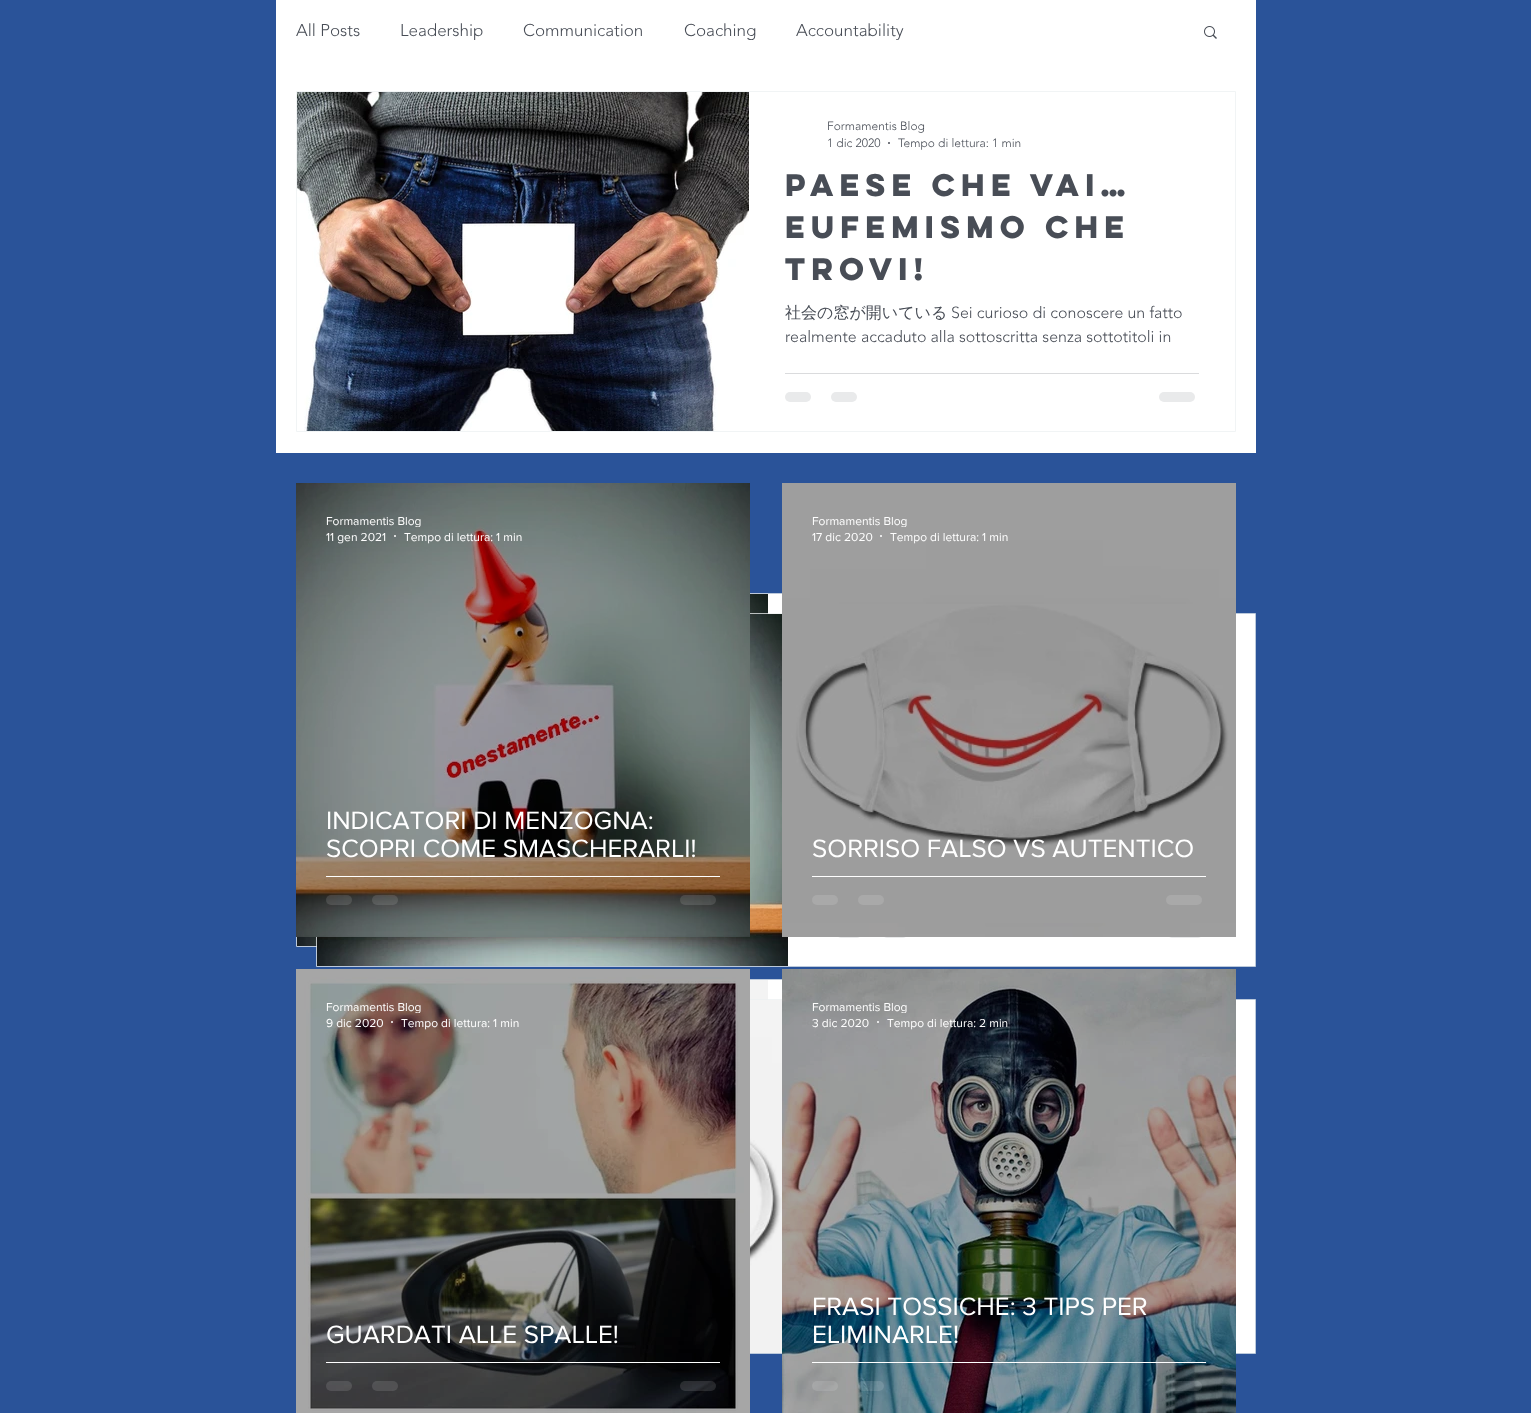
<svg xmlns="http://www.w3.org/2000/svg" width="1531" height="1413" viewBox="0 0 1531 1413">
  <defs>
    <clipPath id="clip1"><path d="M785 163h414v126H785z"/></clipPath>
    <clipPath id="clip2"><path d="M326 514h95v13H326z"/></clipPath>
    <clipPath id="clip3"><path d="M812 514h95v13H812z"/></clipPath>
    <clipPath id="clip4"><path d="M326 1000h95v13H326z"/></clipPath>
    <clipPath id="clip5"><path d="M812 1000h95v13H812z"/></clipPath>
  </defs>
  <rect width="100%" height="100%" fill="#2a5399"/>
  <path d="M276 0h980v453H276z" fill="#fff"/>
  <image x="1204" y="26" width="13" height="13" href="img/1.png"/>
  <path d="M296.5 91.5h939v340H296.5z" fill="none" stroke="#f1f4f5"/>
  <image x="297" y="92" width="452" height="339" href="img/2.png"/>
  <circle cx="889" cy="143" r="1" fill="#484d56"/>
  <path d="M785 373h414v1H785z" fill="#dadbdd"/>
  <rect x="785" y="392" width="26" height="10" rx="5" fill="#e9eaeb"/>
  <rect x="831" y="392" width="26" height="10" rx="5" fill="#e9eaeb"/>
  <rect x="1159" y="392" width="36" height="10" rx="5" fill="#e9eaeb"/>
  <path d="M296.5 593.5h939v353H296.5z" fill="none" stroke="#bcc9db"/>
  <image x="297" y="594" width="471" height="352" href="img/8.png"/>
  <path d="M768 594h14v20H768z" fill="#fff"/>
  <path d="M316.5 613.5h939v353H316.5z" fill="none" stroke="#ecf0f1bf"/>
  <image x="317" y="614" width="471" height="352" href="img/8.png"/>
  <image x="296" y="483" width="454" height="454" href="img/3.png"/>
  <circle cx="395" cy="536" r="1" fill="#fff"/>
  <path d="M326 876h394v1H326z" fill="#fff"/>
  <rect x="326" y="895" width="26" height="10" rx="5" fill="#ffffff1f"/>
  <rect x="372" y="895" width="26" height="10" rx="5" fill="#ffffff1f"/>
  <rect x="680" y="895" width="36" height="10" rx="5" fill="#ffffff1f"/>
  <path d="M788 614h467v352H788z" fill="#fff"/>
  <rect x="836" y="928" width="26" height="10" rx="5" fill="#e9eaeb"/>
  <rect x="882" y="928" width="26" height="10" rx="5" fill="#e9eaeb"/>
  <rect x="1167" y="928" width="36" height="10" rx="5" fill="#e9eaeb"/>
  <image x="782" y="483" width="454" height="454" href="img/4.png"/>
  <image x="782" y="604" width="454" height="319" href="img/5.png"/>
  <path d="M782 483h454v454H782z" fill="#00000059"/>
  <circle cx="881" cy="536" r="1" fill="#fff"/>
  <path d="M812 876h394v1H812z" fill="#fff"/>
  <rect x="812" y="895" width="26" height="10" rx="5" fill="#a9a9a9"/>
  <rect x="858" y="895" width="26" height="10" rx="5" fill="#a9a9a9"/>
  <rect x="1166" y="895" width="36" height="10" rx="5" fill="#a9a9a9"/>
  <path d="M296.5 979.5h939v354H296.5z" fill="none" stroke="#bcc9db"/>
  <image x="750" y="980" width="18" height="20" href="img/9.png"/>
  <path d="M768 980h14v20H768z" fill="#fff"/>
  <path d="M316.5 999.5h939v354H316.5z" fill="none" stroke="#ecf0f1bf"/>
  <image x="296" y="969" width="454" height="444" href="img/6.png"/>
  <circle cx="392" cy="1022" r="1" fill="#fff"/>
  <path d="M326 1362h394v1H326z" fill="#fff"/>
  <rect x="326" y="1381" width="26" height="10" rx="5" fill="#ffffff1f"/>
  <rect x="372" y="1381" width="26" height="10" rx="5" fill="#ffffff1f"/>
  <rect x="680" y="1381" width="36" height="10" rx="5" fill="#ffffff1f"/>
  <image x="782" y="969" width="454" height="444" href="img/7.png"/>
  <circle cx="878" cy="1022" r="1" fill="#fff"/>
  <path d="M812 1362h394v1H812z" fill="#fff"/>
  <rect x="812" y="1381" width="26" height="10" rx="5" fill="#ffffff1f"/>
  <rect x="858" y="1381" width="26" height="10" rx="5" fill="#ffffff1f"/>
  <rect x="1166" y="1381" width="36" height="10" rx="5" fill="#ffffff1f"/>
  <image x="750" y="1000" width="32" height="63" href="img/10.png"/>
  <image x="750" y="1063" width="32" height="290" href="img/11.png"/>
  <path d="M1236 1000h19v353H1236z" fill="#fff"/>
  <g font-family="'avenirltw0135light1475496'" font-size="17" font-weight="300" fill="#484d56">
    <text x="296" y="36">All Posts</text>
    <text x="400" y="36">Leadership</text>
    <text x="523" y="36">Communication</text>
    <text x="684" y="36">Coaching</text>
    <text x="796" y="36">Accountability</text>
  </g>
  <g font-family="'avenirltw0135light1475496'" font-size="12" font-weight="300" fill="#484d56">
    <text x="827" y="130">Formamentis Blog</text>
    <text x="827" y="147">1 dic 2020</text>
    <text x="898" y="147">Tempo di lettura: 1 min</text>
  </g>
  <g font-family="'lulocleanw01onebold'" font-size="28" font-weight="bold" fill="#484d56">
    <text x="785" y="196">PAESE CHE VAI…</text>
    <text x="785" y="238">eufemismo che</text>
  </g>
  <g clip-path="url(#clip1)">
    <text x="785" y="280" font-family="'lulocleanw01onebold'" font-size="28" font-weight="bold" fill="#484d56">trovi!</text>
  </g>
  <text x="785" y="318" font-family="WenQuanYi Zen Hei" font-size="16" font-weight="500" fill="#484d56">社会の窓が開いている</text>
  <g font-family="'avenirltw0135light1475496'" font-size="16" font-weight="300" fill="#484d56">
    <text x="951" y="318">Sei curioso di conoscere un fatto</text>
    <text x="785" y="342">realmente accaduto alla sottoscritta senza sottotitoli in</text>
  </g>
  <g clip-path="url(#clip2)">
    <text x="326" y="525" font-family="'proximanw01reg'" font-size="12" fill="#fff">Formamentis Blog</text>
  </g>
  <g font-family="'proximanw01reg'" font-size="12" fill="#fff">
    <text x="326" y="541">11 gen 2021</text>
    <text x="404" y="541">Tempo di lettura: 1 min</text>
  </g>
  <g font-family="'proximanw01reg'" font-size="26" fill="#fff">
    <text x="326" y="829">INDICATORI DI MENZOGNA:</text>
    <text x="326" y="857">SCOPRI COME SMASCHERARLI!</text>
  </g>
  <g clip-path="url(#clip3)">
    <text x="812" y="525" font-family="'proximanw01reg'" font-size="12" fill="#fff">Formamentis Blog</text>
  </g>
  <g font-family="'proximanw01reg'" font-size="12" fill="#fff">
    <text x="812" y="541">17 dic 2020</text>
    <text x="890" y="541">Tempo di lettura: 1 min</text>
  </g>
  <text x="812" y="857" font-family="'proximanw01reg'" font-size="26" fill="#fff">SORRISO FALSO VS AUTENTICO</text>
  <g clip-path="url(#clip4)">
    <text x="326" y="1011" font-family="'proximanw01reg'" font-size="12" fill="#fff">Formamentis Blog</text>
  </g>
  <g font-family="'proximanw01reg'" font-size="12" fill="#fff">
    <text x="326" y="1027">9 dic 2020</text>
    <text x="401" y="1027">Tempo di lettura: 1 min</text>
  </g>
  <text x="326" y="1343" font-family="'proximanw01reg'" font-size="26" fill="#fff">GUARDATI ALLE SPALLE!</text>
  <g clip-path="url(#clip5)">
    <text x="812" y="1011" font-family="'proximanw01reg'" font-size="12" fill="#fff">Formamentis Blog</text>
  </g>
  <g font-family="'proximanw01reg'" font-size="12" fill="#fff">
    <text x="812" y="1027">3 dic 2020</text>
    <text x="887" y="1027">Tempo di lettura: 2 min</text>
  </g>
  <g font-family="'proximanw01reg'" font-size="26" fill="#fff">
    <text x="812" y="1315">FRASI TOSSICHE: 3 TIPS PER</text>
    <text x="812" y="1343">ELIMINARLE!</text>
  </g>
</svg>
